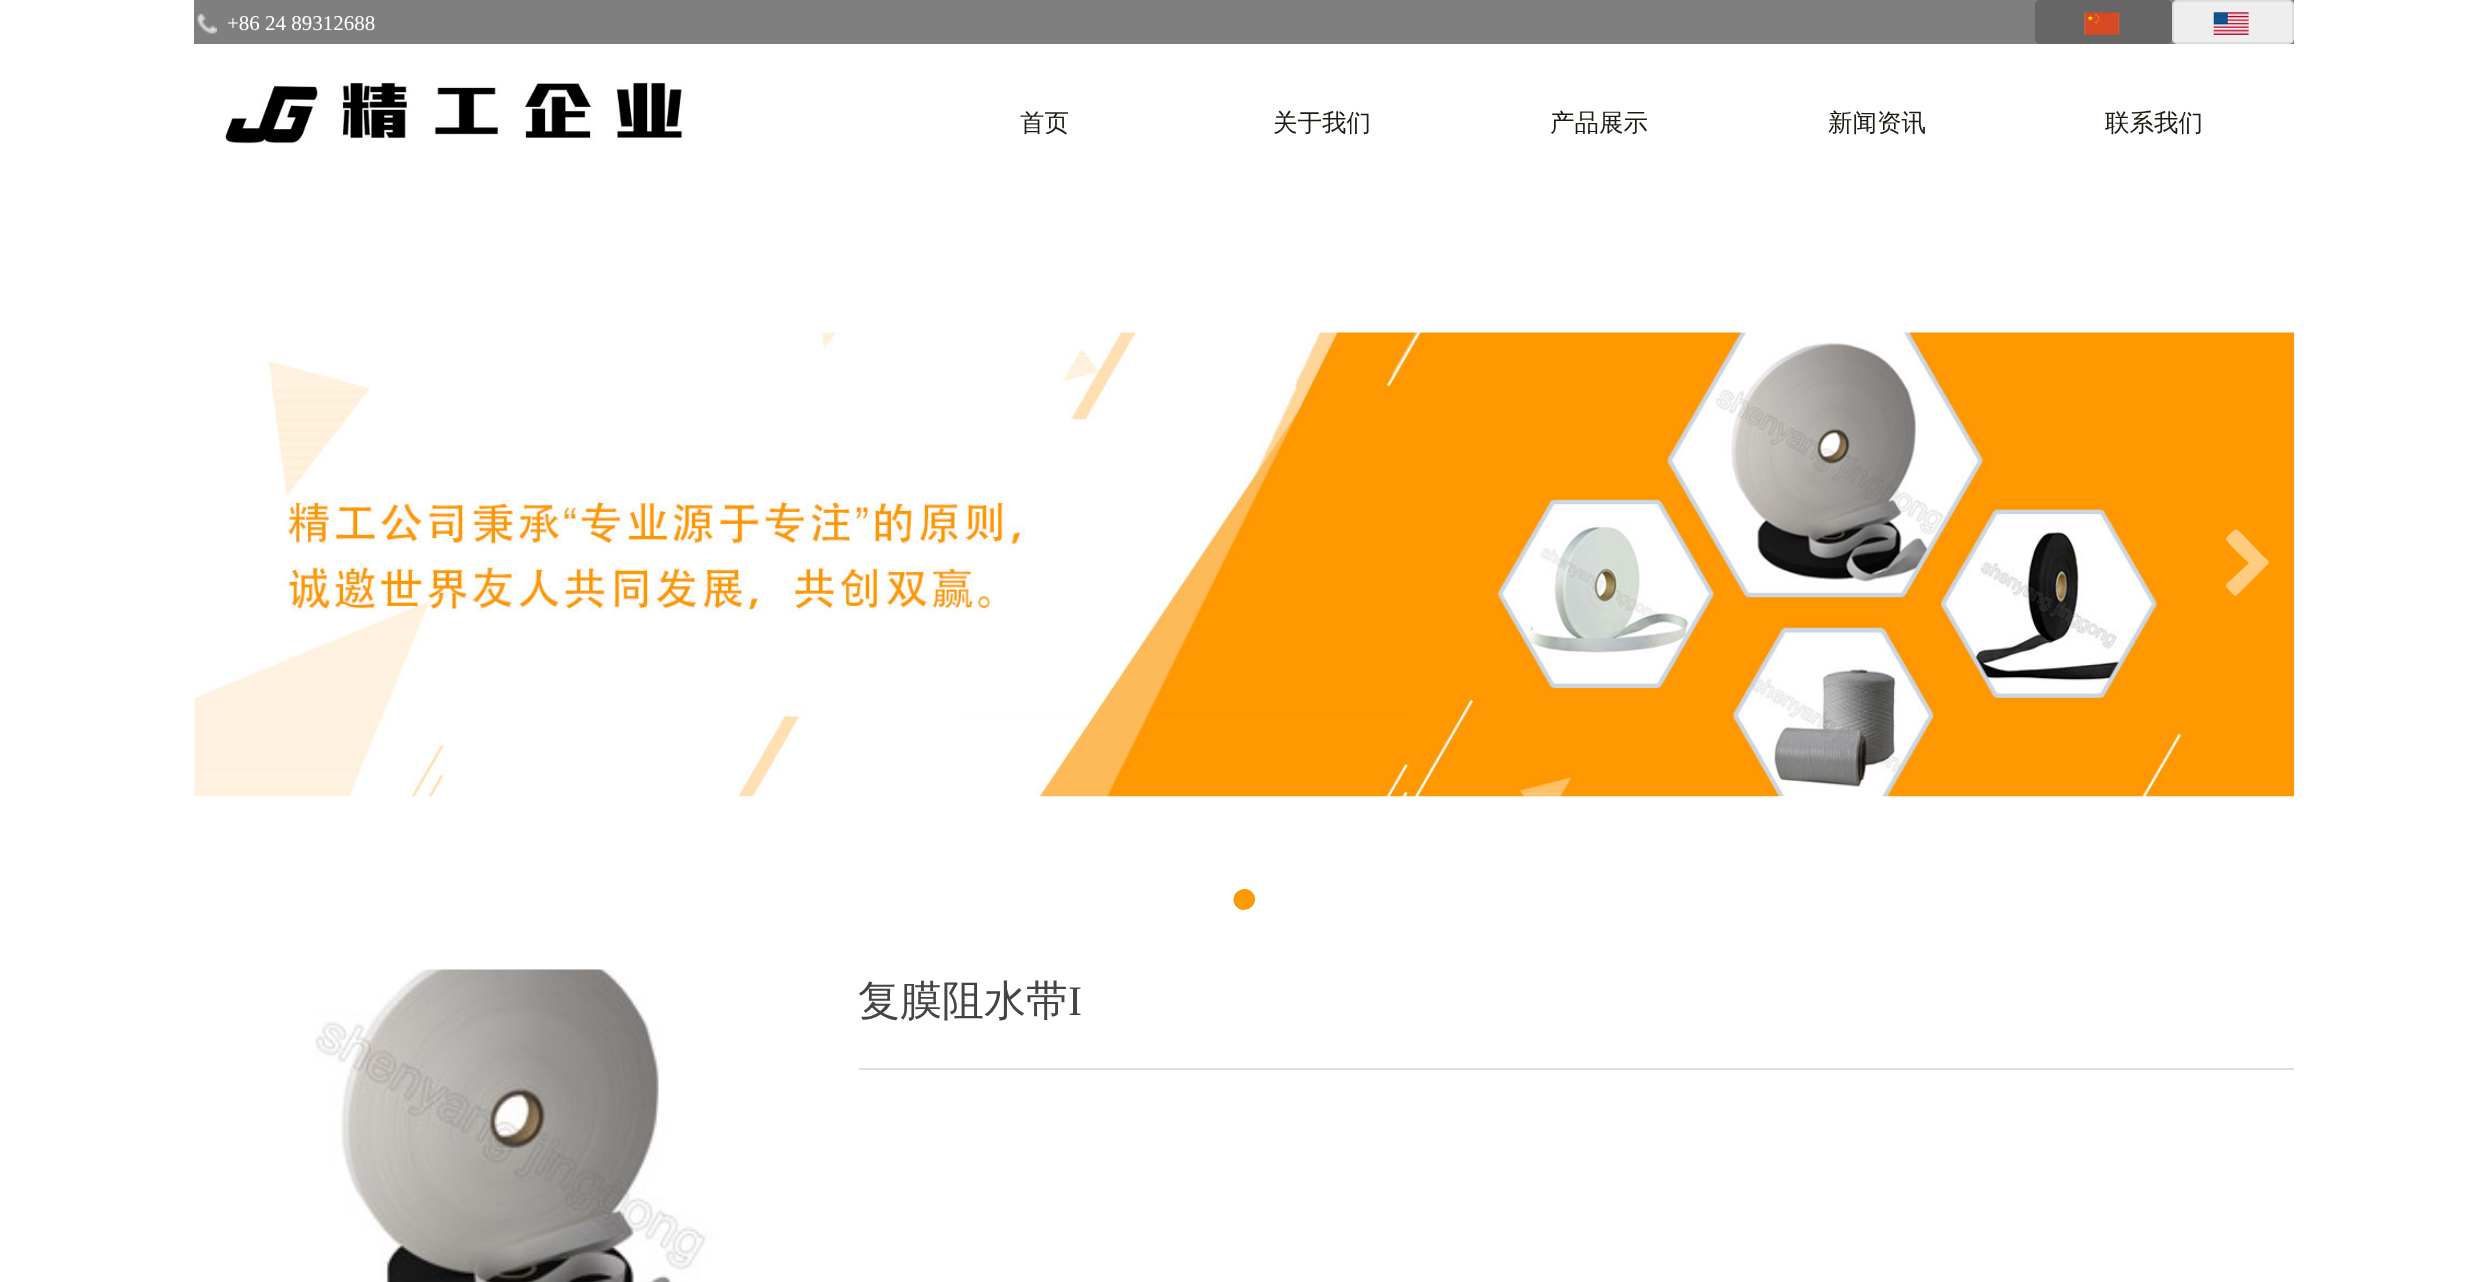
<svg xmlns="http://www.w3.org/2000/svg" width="2486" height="1282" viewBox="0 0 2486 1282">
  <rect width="100%" height="100%" fill="#fff"/>
  <path d="M194 0h2100v44H194z" fill="#7f7f7f"/>
  <image x="197" y="13" width="20" height="21" href="img/1.png"/>
  <rect x="2036" y="1" width="135" height="42" rx="4" fill="#666" stroke="#666" stroke-width="2"/>
  <image x="2084" y="12" width="36" height="23" href="img/2.png"/>
  <rect x="2173" y="1" width="120" height="42" rx="4" fill="#eee" stroke="#ddd" stroke-width="2"/>
  <image x="2213" y="12" width="36" height="23" href="img/3.png"/>
  <image x="224" y="79" width="461" height="66" href="img/4.png"/>
  <image x="194" y="332" width="2101" height="465" href="img/5.png"/>
  <path d="M2268 564L2237 595C2235 598 2231 592 2229 590C2223 584 2227 584 2234 577L2249 563C2246 560 2226 542 2226 539C2226 537 2229 535 2230 534C2237 527 2236 529 2243 535L2263 556C2263 556 2269 560 2269 563Z" fill="#ffcc80"/>
  <path d="M1253.5 894C1260.5 906 1242 916.5 1235 905C1228 893 1246.5 882.5 1253.5 894Z" fill="#f90"/>
  <image x="314" y="969" width="399" height="313" href="img/6.png"/>
  <path d="M859 1068h1435v2H859z" fill="#ddd"/>
  <text x="227" y="30" font-family="Liberation Serif" font-size="21" fill="#fff">+86 24 89312688</text>
  <g font-family="WenQuanYi Zen Hei" font-size="24.5" font-weight="500" fill="#1d1b10">
    <text x="1020" y="131">首页</text>
    <text x="1273" y="131">关于我们</text>
    <text x="1550" y="131">产品展示</text>
    <text x="1828" y="131">新闻资讯</text>
    <text x="2105" y="131">联系我们</text>
  </g>
  <text x="858" y="1015" font-family="WenQuanYi Zen Hei" font-size="42" font-weight="500" fill="#444">复膜阻水带</text>
  <text x="1068" y="1015" font-family="Liberation Serif" font-size="42" fill="#444">I</text>
</svg>
